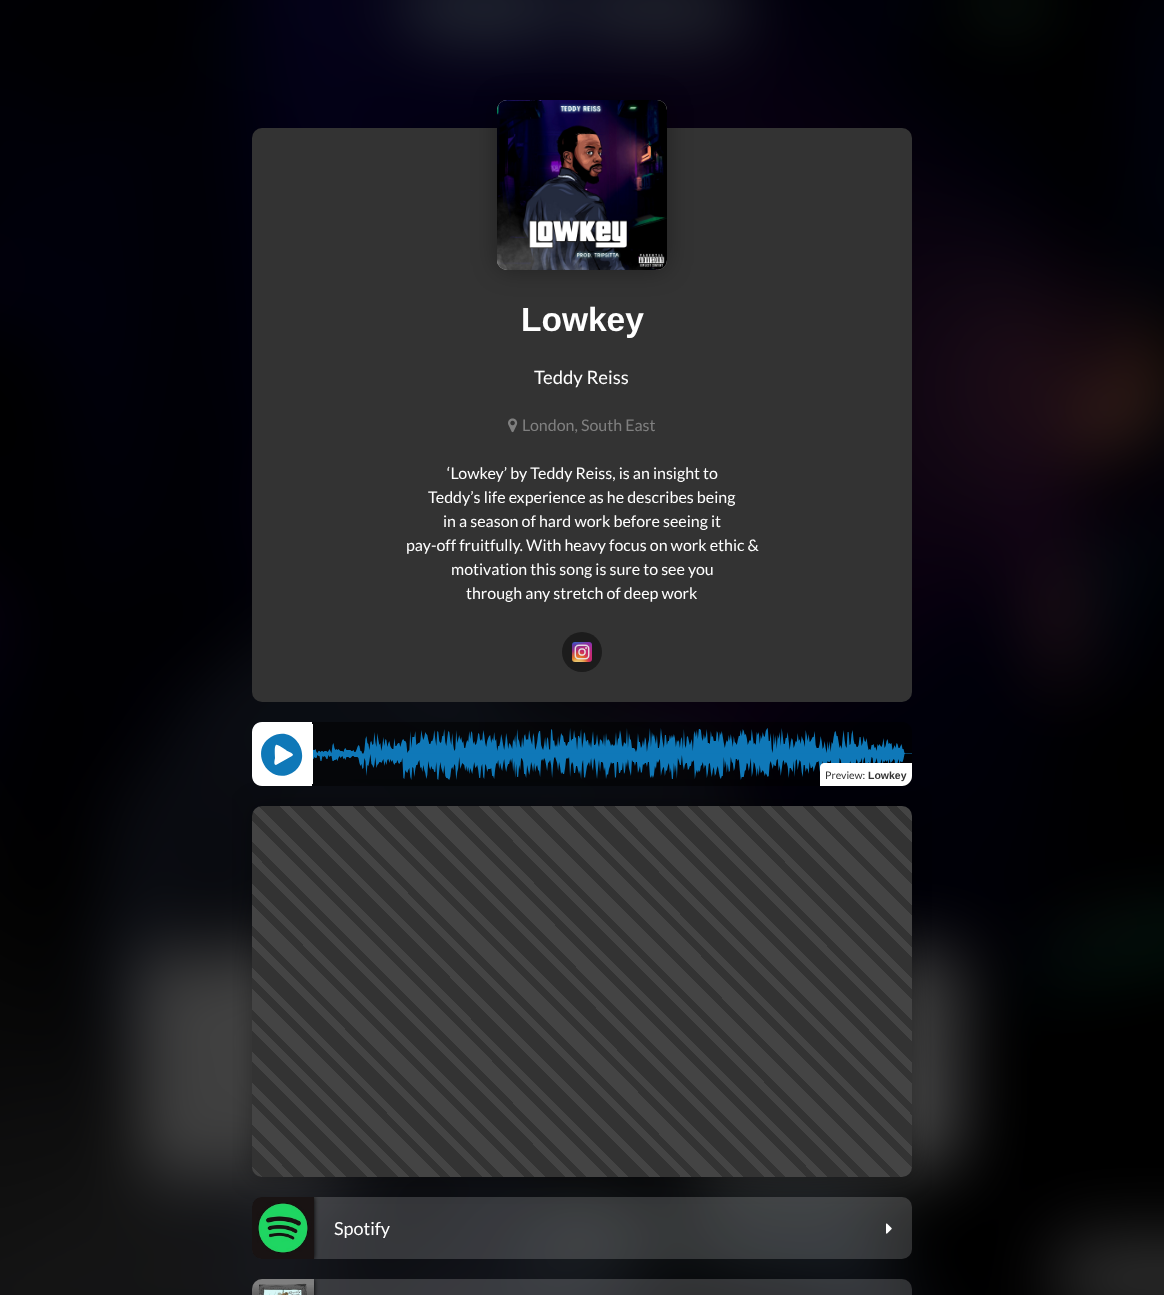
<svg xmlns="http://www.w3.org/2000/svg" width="1164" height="1295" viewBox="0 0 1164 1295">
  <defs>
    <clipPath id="clip1"><path d="M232 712h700v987H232z"/></clipPath>
    <linearGradient id="g1" gradientUnits="userSpaceOnUse" x1="324" y1="1249" x2="848" y2="726"><stop offset="0" stop-color="#444"/><stop offset="0.01" stop-color="#444"/><stop offset="0.01" stop-color="#333"/><stop offset="0.03" stop-color="#333"/><stop offset="0.03" stop-color="#444"/><stop offset="0.04" stop-color="#444"/><stop offset="0.04" stop-color="#333"/><stop offset="0.05" stop-color="#333"/><stop offset="0.05" stop-color="#444"/><stop offset="0.07" stop-color="#444"/><stop offset="0.07" stop-color="#333"/><stop offset="0.08" stop-color="#333"/><stop offset="0.08" stop-color="#444"/><stop offset="0.09" stop-color="#444"/><stop offset="0.09" stop-color="#333"/><stop offset="0.11" stop-color="#333"/><stop offset="0.11" stop-color="#444"/><stop offset="0.12" stop-color="#444"/><stop offset="0.12" stop-color="#333"/><stop offset="0.14" stop-color="#333"/><stop offset="0.14" stop-color="#444"/><stop offset="0.15" stop-color="#444"/><stop offset="0.15" stop-color="#333"/><stop offset="0.16" stop-color="#333"/><stop offset="0.16" stop-color="#444"/><stop offset="0.18" stop-color="#444"/><stop offset="0.18" stop-color="#333"/><stop offset="0.19" stop-color="#333"/><stop offset="0.19" stop-color="#444"/><stop offset="0.2" stop-color="#444"/><stop offset="0.2" stop-color="#333"/><stop offset="0.22" stop-color="#333"/><stop offset="0.22" stop-color="#444"/><stop offset="0.23" stop-color="#444"/><stop offset="0.23" stop-color="#333"/><stop offset="0.24" stop-color="#333"/><stop offset="0.24" stop-color="#444"/><stop offset="0.26" stop-color="#444"/><stop offset="0.26" stop-color="#333"/><stop offset="0.27" stop-color="#333"/><stop offset="0.27" stop-color="#444"/><stop offset="0.28" stop-color="#444"/><stop offset="0.28" stop-color="#333"/><stop offset="0.3" stop-color="#333"/><stop offset="0.3" stop-color="#444"/><stop offset="0.31" stop-color="#444"/><stop offset="0.31" stop-color="#333"/><stop offset="0.32" stop-color="#333"/><stop offset="0.32" stop-color="#444"/><stop offset="0.34" stop-color="#444"/><stop offset="0.34" stop-color="#333"/><stop offset="0.35" stop-color="#333"/><stop offset="0.35" stop-color="#444"/><stop offset="0.36" stop-color="#444"/><stop offset="0.36" stop-color="#333"/><stop offset="0.38" stop-color="#333"/><stop offset="0.38" stop-color="#444"/><stop offset="0.39" stop-color="#444"/><stop offset="0.39" stop-color="#333"/><stop offset="0.41" stop-color="#333"/><stop offset="0.41" stop-color="#444"/><stop offset="0.42" stop-color="#444"/><stop offset="0.42" stop-color="#333"/><stop offset="0.43" stop-color="#333"/><stop offset="0.43" stop-color="#444"/><stop offset="0.45" stop-color="#444"/><stop offset="0.45" stop-color="#333"/><stop offset="0.46" stop-color="#333"/><stop offset="0.46" stop-color="#444"/><stop offset="0.47" stop-color="#444"/><stop offset="0.47" stop-color="#333"/><stop offset="0.49" stop-color="#333"/><stop offset="0.49" stop-color="#444"/><stop offset="0.5" stop-color="#444"/><stop offset="0.5" stop-color="#333"/><stop offset="0.51" stop-color="#333"/><stop offset="0.51" stop-color="#444"/><stop offset="0.53" stop-color="#444"/><stop offset="0.53" stop-color="#333"/><stop offset="0.54" stop-color="#333"/><stop offset="0.54" stop-color="#444"/><stop offset="0.55" stop-color="#444"/><stop offset="0.55" stop-color="#333"/><stop offset="0.57" stop-color="#333"/><stop offset="0.57" stop-color="#444"/><stop offset="0.58" stop-color="#444"/><stop offset="0.58" stop-color="#333"/><stop offset="0.59" stop-color="#333"/><stop offset="0.59" stop-color="#444"/><stop offset="0.61" stop-color="#444"/><stop offset="0.61" stop-color="#333"/><stop offset="0.62" stop-color="#333"/><stop offset="0.62" stop-color="#444"/><stop offset="0.64" stop-color="#444"/><stop offset="0.64" stop-color="#333"/><stop offset="0.65" stop-color="#333"/><stop offset="0.65" stop-color="#444"/><stop offset="0.66" stop-color="#444"/><stop offset="0.66" stop-color="#333"/><stop offset="0.68" stop-color="#333"/><stop offset="0.68" stop-color="#444"/><stop offset="0.69" stop-color="#444"/><stop offset="0.69" stop-color="#333"/><stop offset="0.7" stop-color="#333"/><stop offset="0.7" stop-color="#444"/><stop offset="0.72" stop-color="#444"/><stop offset="0.72" stop-color="#333"/><stop offset="0.73" stop-color="#333"/><stop offset="0.73" stop-color="#444"/><stop offset="0.74" stop-color="#444"/><stop offset="0.74" stop-color="#333"/><stop offset="0.76" stop-color="#333"/><stop offset="0.76" stop-color="#444"/><stop offset="0.77" stop-color="#444"/><stop offset="0.77" stop-color="#333"/><stop offset="0.78" stop-color="#333"/><stop offset="0.78" stop-color="#444"/><stop offset="0.8" stop-color="#444"/><stop offset="0.8" stop-color="#333"/><stop offset="0.81" stop-color="#333"/><stop offset="0.81" stop-color="#444"/><stop offset="0.82" stop-color="#444"/><stop offset="0.82" stop-color="#333"/><stop offset="0.84" stop-color="#333"/><stop offset="0.84" stop-color="#444"/><stop offset="0.85" stop-color="#444"/><stop offset="0.85" stop-color="#333"/><stop offset="0.86" stop-color="#333"/><stop offset="0.86" stop-color="#444"/><stop offset="0.88" stop-color="#444"/><stop offset="0.88" stop-color="#333"/><stop offset="0.89" stop-color="#333"/><stop offset="0.89" stop-color="#444"/><stop offset="0.91" stop-color="#444"/><stop offset="0.91" stop-color="#333"/><stop offset="0.92" stop-color="#333"/><stop offset="0.92" stop-color="#444"/><stop offset="0.93" stop-color="#444"/><stop offset="0.93" stop-color="#333"/><stop offset="0.95" stop-color="#333"/><stop offset="0.95" stop-color="#444"/><stop offset="0.96" stop-color="#444"/><stop offset="0.96" stop-color="#333"/><stop offset="0.97" stop-color="#333"/><stop offset="0.97" stop-color="#444"/><stop offset="0.99" stop-color="#444"/><stop offset="0.99" stop-color="#333"/><stop offset="1" stop-color="#333"/></linearGradient>
    <clipPath id="clip2"><rect x="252" y="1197" width="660" height="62" rx="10"/></clipPath>
    <clipPath id="clip3"><rect x="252" y="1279" width="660" height="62" rx="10"/></clipPath>
  </defs>
  <rect width="100%" height="100%" fill="#000"/>
  <image x="0" y="0" width="1164" height="1295" href="img/1.png"/>
  <rect x="252" y="128" width="660" height="574" rx="10" fill="#333"/>
  <rect x="497" y="100" width="170" height="170" rx="10" fill="#00000059" filter="blur(12.5px)"/>
  <rect x="497" y="100" width="170" height="170" rx="10" fill="#ccc"/>
  <image x="497" y="100" width="170" height="170" href="img/2.png"/>
  <image x="508" y="418" width="10" height="15" href="img/3.png"/>
  <circle cx="582" cy="652" r="20" fill="#1c1c1c"/>
  <image x="572" y="642" width="20" height="20" href="img/4.png"/>
  <g clip-path="url(#clip1)">
    <rect x="252" y="806" width="660" height="371" rx="10" fill="#00000059" filter="blur(12.5px)"/>
  </g>
  <rect x="252" y="806" width="660" height="371" rx="10" fill="url(#g1)"/>
  <path d="M262 722H312V786H262C256.5 786 252 781.5 252 776V732C252 726.5 256.5 722 262 722Z" fill="#fff"/>
  <path d="M271 737C295 723 315 759 292 773C269 786 248 751 271 737ZM292 756C296 754 287 751 287 751C285 749 277 744 276 745C274 746 275 756 275 758C275 759 273 765 276 765Z" fill="#0f78b8"/>
  <path d="M312 722H902C907.5 722 912 726.5 912 732V776C912 781.5 907.5 786 902 786H312Z" fill="#00000080"/>
  <path d="M312 724h1v60H312z" fill="#fff"/>
  <image x="313" y="728" width="599" height="52" href="img/5.png"/>
  <path d="M824 763H912V776C912 781.5 907.5 786 902 786H820V767C820 765 822 763 824 763Z" fill="#fff"/>
  <rect x="252" y="1197" width="660" height="62" rx="10" fill="#ffffff2b"/>
  <g clip-path="url(#clip2)">
    <path d="M252 1197h62v62H252z" fill="#000" filter="blur(2.5px)"/>
  </g>
  <image x="252" y="1197" width="62" height="62" href="img/6.png"/>
  <image x="886" y="1223" width="6" height="11" href="img/7.png"/>
  <rect x="252" y="1279" width="660" height="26" rx="10" fill="#ffffff2b"/>
  <g clip-path="url(#clip3)">
    <path d="M252 1279h62v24H252z" fill="#000" filter="blur(2.5px)"/>
  </g>
  <image x="252" y="1279" width="62" height="16" href="img/8.png"/>
  <text x="521" y="331" font-family="Liberation Sans" font-size="33.5" font-weight="bold" fill="#fff">Lowkey</text>
  <text x="534" y="384" font-family="Lato" font-size="18.5" fill="#fff">Teddy Reiss</text>
  <text x="522" y="431" font-family="Lato" font-size="16" fill="#808080">London, South East</text>
  <g font-family="Lato" font-size="16" fill="#fff">
    <text x="447" y="479">‘Lowkey’ by Teddy Reiss, is an insight to</text>
    <text x="428" y="503">Teddy’s life experience as he describes being</text>
    <text x="443" y="527">in a season of hard work before seeing it</text>
    <text x="406" y="551">pay-off fruitfully. With heavy focus on work ethic &amp;</text>
    <text x="451" y="575">motivation this song is sure to see you</text>
    <text x="466" y="599">through any stretch of deep work</text>
  </g>
  <text x="825" y="779" font-family="Lato" font-size="10.5" fill="#333">Preview:</text>
  <text x="868" y="779" font-family="Liberation Sans" font-size="10.5" font-weight="bold" fill="#333">Lowkey</text>
  <text x="334" y="1235" font-family="Lato" font-size="18" fill="#fff">Spotify</text>
</svg>
